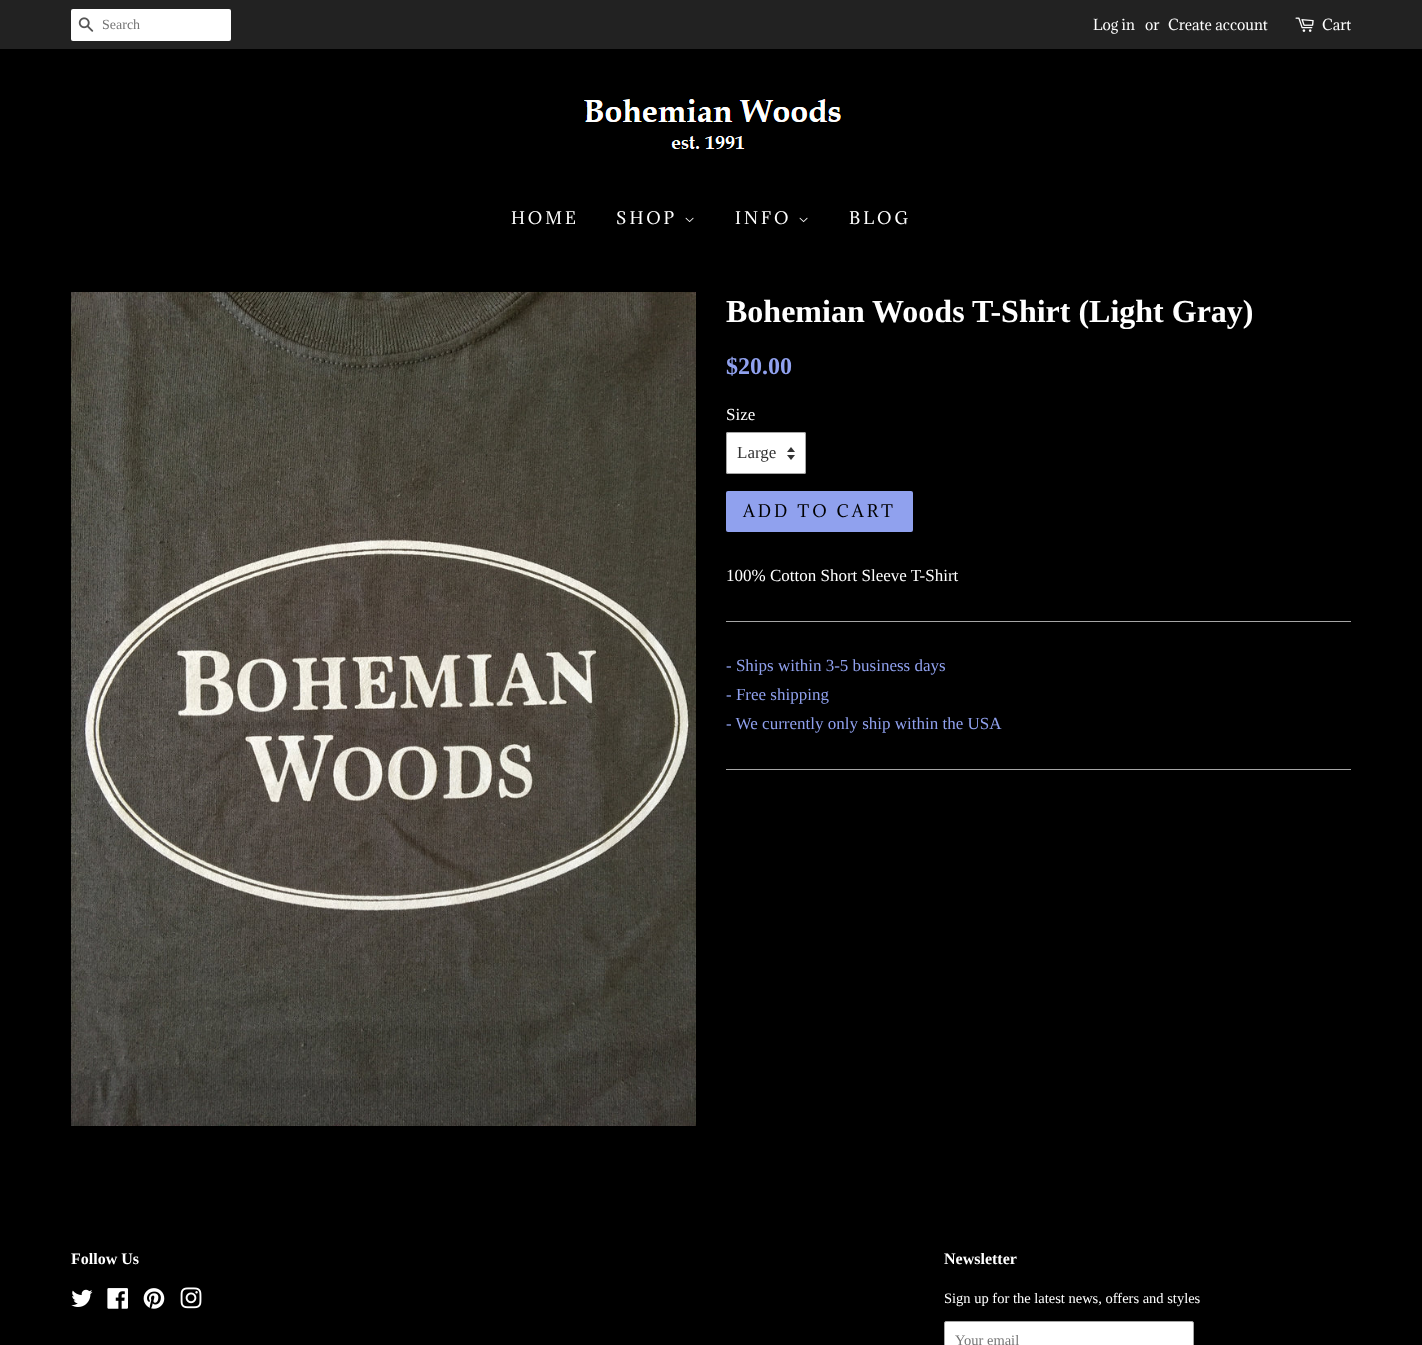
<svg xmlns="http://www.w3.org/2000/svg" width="1422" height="1345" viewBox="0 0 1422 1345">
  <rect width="100%" height="100%" fill="#000"/>
  <path d="M0 0h1422v49H0z" fill="#222"/>
  <rect x="71" y="9" width="160" height="32" rx="2" fill="#fff"/>
  <image x="78" y="17" width="16" height="15" href="img/1.png"/>
  <image x="1295" y="17" width="19" height="15" href="img/2.png"/>
  <image x="584" y="99" width="257" height="50" href="img/3.png"/>
  <image x="685" y="217" width="9" height="6" href="img/4.png"/>
  <image x="799" y="217" width="9" height="6" href="img/4.png"/>
  <image x="71" y="292" width="625" height="834" href="img/5.png"/>
  <rect x="726" y="432" width="80" height="42" rx="2" fill="#fff"/>
  <image x="787" y="447" width="8" height="13" href="img/6.png"/>
  <rect x="726.5" y="432.5" width="79" height="41" rx="1.5" fill="none" stroke="#a6a6a6"/>
  <rect x="726" y="491" width="187" height="41" rx="2" fill="#90a1ee"/>
  <path d="M726 621h625v1H726z" fill="#a6a6a6"/>
  <path d="M726 769h625v1H726z" fill="#a6a6a6"/>
  <image x="71" y="1289" width="22" height="18" href="img/7.png"/>
  <image x="107" y="1288" width="21" height="21" href="img/8.png"/>
  <image x="143" y="1288" width="22" height="21" href="img/9.png"/>
  <image x="180" y="1287" width="22" height="22" href="img/10.png"/>
  <rect x="944.5" y="1321.5" width="249" height="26" rx="1.5" fill="#fff" stroke="#a6a6a6"/>
  <text x="102" y="29" font-family="Liberation Serif" font-size="14" fill="#757575">Search</text>
  <g font-family="Adamina" font-size="14" fill="#fff">
    <text x="1093" y="30">Log in</text>
    <text x="1145" y="30">or</text>
    <text x="1168" y="30">Create account</text>
    <text x="1322" y="30">Cart</text>
  </g>
  <g font-family="Adamina" font-size="16" letter-spacing="3" fill="#fff">
    <text x="511" y="224">HOME</text>
    <text x="616" y="224">SHOP</text>
    <text x="735" y="224">INFO</text>
    <text x="849" y="224">BLOG</text>
  </g>
  <text x="726" y="322" font-family="Liberation Serif" font-size="32" font-weight="bold" fill="#fff">Bohemian Woods T-Shirt (Light Gray)</text>
  <text x="726" y="374" font-family="Liberation Serif" font-size="24" font-weight="bold" fill="#90a1ee">$20.00</text>
  <text x="726" y="420" font-family="Liberation Serif" font-size="17" fill="#fff">Size</text>
  <text x="737" y="458" font-family="Liberation Serif" font-size="17" fill="#333">Large</text>
  <text x="743" y="517" font-family="Adamina" font-size="16" letter-spacing="3" fill="#000">ADD TO CART</text>
  <text x="726" y="581" font-family="Liberation Serif" font-size="17" fill="#fff">100% Cotton Short Sleeve T-Shirt</text>
  <g font-family="Liberation Serif" font-size="17" fill="#90a1ee">
    <text x="726" y="671">- Ships within 3-5 business days</text>
    <text x="726" y="700">- Free shipping</text>
    <text x="726" y="729">- We currently only ship within the USA</text>
  </g>
  <g font-family="Liberation Serif" font-size="16" font-weight="bold" fill="#fff">
    <text x="71" y="1264">Follow Us</text>
    <text x="944" y="1264">Newsletter</text>
  </g>
  <text x="944" y="1303" font-family="Liberation Serif" font-size="14.5" fill="#fff">Sign up for the latest news, offers and styles</text>
  <text x="955" y="1345" font-family="Liberation Serif" font-size="14.5" fill="#757575">Your email</text>
</svg>
